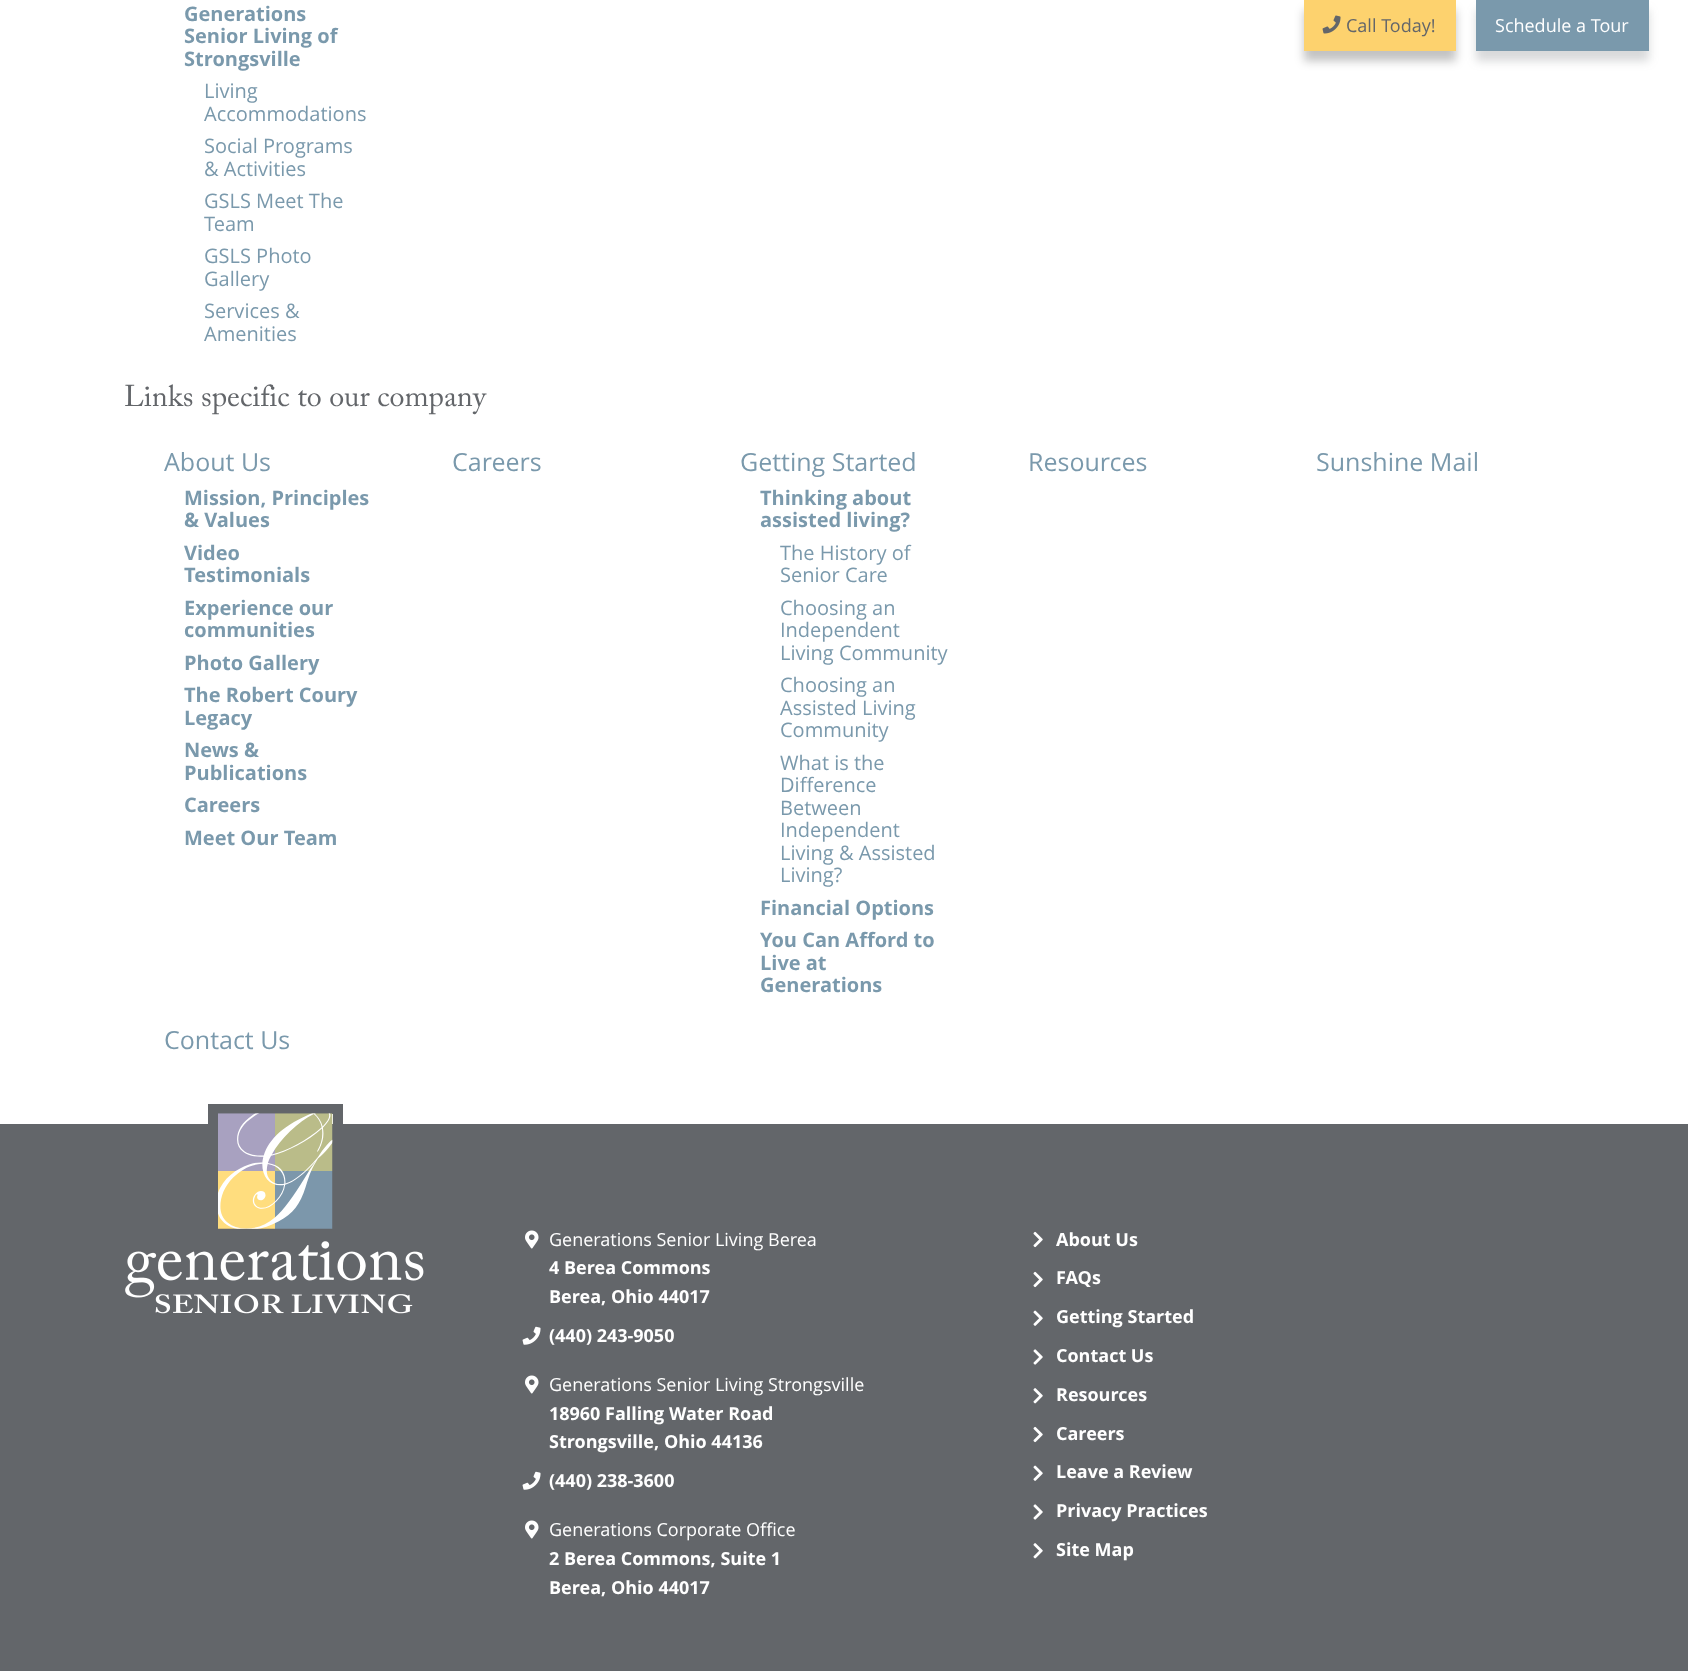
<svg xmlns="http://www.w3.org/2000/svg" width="1688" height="1671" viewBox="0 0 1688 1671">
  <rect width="100%" height="100%" fill="#fff"/>
  <path d="M1304 10h152v51H1304z" fill="#0a0a0a40" filter="blur(5px)"/>
  <path d="M1304 0h152v51H1304z" fill="#fdd26e"/>
  <image x="1322" y="15" width="19" height="19" href="img/1.png"/>
  <path d="M1476 10h173v51H1476z" fill="#63666a40" filter="blur(5px)"/>
  <path d="M1476 0h173v51H1476z" fill="#7a99ac"/>
  <path d="M0 1124h1688v547H0z" fill="#63666a"/>
  <path d="M218 1104h115v10H218z" fill="#63666a"/>
  <path d="M333 1104h10v20H333z" fill="#63666a"/>
  <path d="M208 1104h10v20H208z" fill="#63666a"/>
  <image x="218" y="1113" width="115" height="116" href="img/2.png"/>
  <image x="125" y="1241" width="299" height="73" href="img/3.png"/>
  <image x="525" y="1230" width="14" height="19" href="img/4.png"/>
  <image x="522" y="1326" width="19" height="19" href="img/5.png"/>
  <image x="525" y="1375" width="14" height="19" href="img/4.png"/>
  <image x="522" y="1471" width="19" height="19" href="img/5.png"/>
  <image x="525" y="1520" width="14" height="19" href="img/4.png"/>
  <image x="1033" y="1231" width="10" height="17" href="img/6.png"/>
  <image x="1033" y="1271" width="10" height="17" href="img/6.png"/>
  <image x="1033" y="1310" width="10" height="16" href="img/7.png"/>
  <image x="1033" y="1349" width="10" height="16" href="img/8.png"/>
  <image x="1033" y="1388" width="10" height="16" href="img/9.png"/>
  <image x="1033" y="1426" width="10" height="17" href="img/6.png"/>
  <image x="1033" y="1465" width="10" height="16" href="img/7.png"/>
  <image x="1033" y="1504" width="10" height="16" href="img/8.png"/>
  <image x="1033" y="1543" width="10" height="16" href="img/9.png"/>
  <g font-family="Open Sans" font-size="20" font-weight="bold" fill="#7a99ac">
    <text x="184" y="21">Generations</text>
    <text x="184" y="43">Senior Living of</text>
    <text x="184" y="66">Strongsville</text>
  </g>
  <g font-family="Open Sans" font-size="20" fill="#7a99ac">
    <text x="204" y="98">Living</text>
    <text x="204" y="121">Accommodations</text>
    <text x="204" y="153">Social Programs</text>
    <text x="204" y="176">&amp; Activities</text>
    <text x="204" y="208">GSLS Meet The</text>
    <text x="204" y="231">Team</text>
    <text x="204" y="263">GSLS Photo</text>
    <text x="204" y="286">Gallery</text>
    <text x="204" y="318">Services &amp;</text>
    <text x="204" y="341">Amenities</text>
  </g>
  <text x="124" y="406" font-family="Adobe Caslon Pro" font-size="30" fill="#63666a">Links specific to our company</text>
  <text x="164" y="471" font-family="Open Sans" font-size="25" fill="#7a99ac">About Us</text>
  <g font-family="Open Sans" font-size="20" font-weight="bold" fill="#7a99ac">
    <text x="184" y="505">Mission, Principles</text>
    <text x="184" y="527">&amp; Values</text>
    <text x="184" y="560">Video</text>
    <text x="184" y="582">Testimonials</text>
    <text x="184" y="615">Experience our</text>
    <text x="184" y="637">communities</text>
    <text x="184" y="670">Photo Gallery</text>
    <text x="184" y="702">The Robert Coury</text>
    <text x="184" y="725">Legacy</text>
    <text x="184" y="757">News &amp;</text>
    <text x="184" y="780">Publications</text>
    <text x="184" y="812">Careers</text>
    <text x="184" y="845">Meet Our Team</text>
  </g>
  <g font-family="Open Sans" font-size="25" fill="#7a99ac">
    <text x="452" y="471">Careers</text>
    <text x="740" y="471">Getting Started</text>
  </g>
  <g font-family="Open Sans" font-size="20" font-weight="bold" fill="#7a99ac">
    <text x="760" y="505">Thinking about</text>
    <text x="760" y="527">assisted living?</text>
  </g>
  <g font-family="Open Sans" font-size="20" fill="#7a99ac">
    <text x="780" y="560">The History of</text>
    <text x="780" y="582">Senior Care</text>
    <text x="780" y="615">Choosing an</text>
    <text x="780" y="637">Independent</text>
    <text x="780" y="660">Living Community</text>
    <text x="780" y="692">Choosing an</text>
    <text x="780" y="715">Assisted Living</text>
    <text x="780" y="737">Community</text>
    <text x="780" y="770">What is the</text>
    <text x="780" y="792">Difference</text>
    <text x="780" y="815">Between</text>
    <text x="780" y="837">Independent</text>
    <text x="780" y="860">Living &amp; Assisted</text>
    <text x="780" y="882">Living?</text>
  </g>
  <g font-family="Open Sans" font-size="20" font-weight="bold" fill="#7a99ac">
    <text x="760" y="915">Financial Options</text>
    <text x="760" y="947">You Can Afford to</text>
    <text x="760" y="970">Live at</text>
    <text x="760" y="992">Generations</text>
  </g>
  <g font-family="Open Sans" font-size="25" fill="#7a99ac">
    <text x="1028" y="471">Resources</text>
    <text x="1316" y="471">Sunshine Mail</text>
    <text x="164" y="1049">Contact Us</text>
  </g>
  <text x="1346" y="32" font-family="Open Sans" font-size="18" fill="#63666a">Call Today!</text>
  <g font-family="Open Sans" font-size="18" fill="#fff">
    <text x="1495" y="32">Schedule a Tour</text>
    <text x="549" y="1246">Generations Senior Living Berea</text>
  </g>
  <g font-family="Open Sans" font-size="18" font-weight="bold" fill="#fff">
    <text x="549" y="1274">4 Berea Commons</text>
    <text x="549" y="1303">Berea, Ohio 44017</text>
    <text x="549" y="1342">(440) 243-9050</text>
  </g>
  <text x="549" y="1391" font-family="Open Sans" font-size="18" fill="#fff">Generations Senior Living Strongsville</text>
  <g font-family="Open Sans" font-size="18" font-weight="bold" fill="#fff">
    <text x="549" y="1420">18960 Falling Water Road</text>
    <text x="549" y="1448">Strongsville, Ohio 44136</text>
    <text x="549" y="1487">(440) 238-3600</text>
  </g>
  <text x="549" y="1536" font-family="Open Sans" font-size="18" fill="#fff">Generations Corporate Office</text>
  <g font-family="Open Sans" font-size="18" font-weight="bold" fill="#fff">
    <text x="549" y="1565">2 Berea Commons, Suite 1</text>
    <text x="549" y="1594">Berea, Ohio 44017</text>
    <text x="1056" y="1246">About Us</text>
    <text x="1056" y="1284">FAQs</text>
    <text x="1056" y="1323">Getting Started</text>
    <text x="1056" y="1362">Contact Us</text>
    <text x="1056" y="1401">Resources</text>
    <text x="1056" y="1440">Careers</text>
    <text x="1056" y="1478">Leave a Review</text>
    <text x="1056" y="1517">Privacy Practices</text>
    <text x="1056" y="1556">Site Map</text>
  </g>
</svg>
